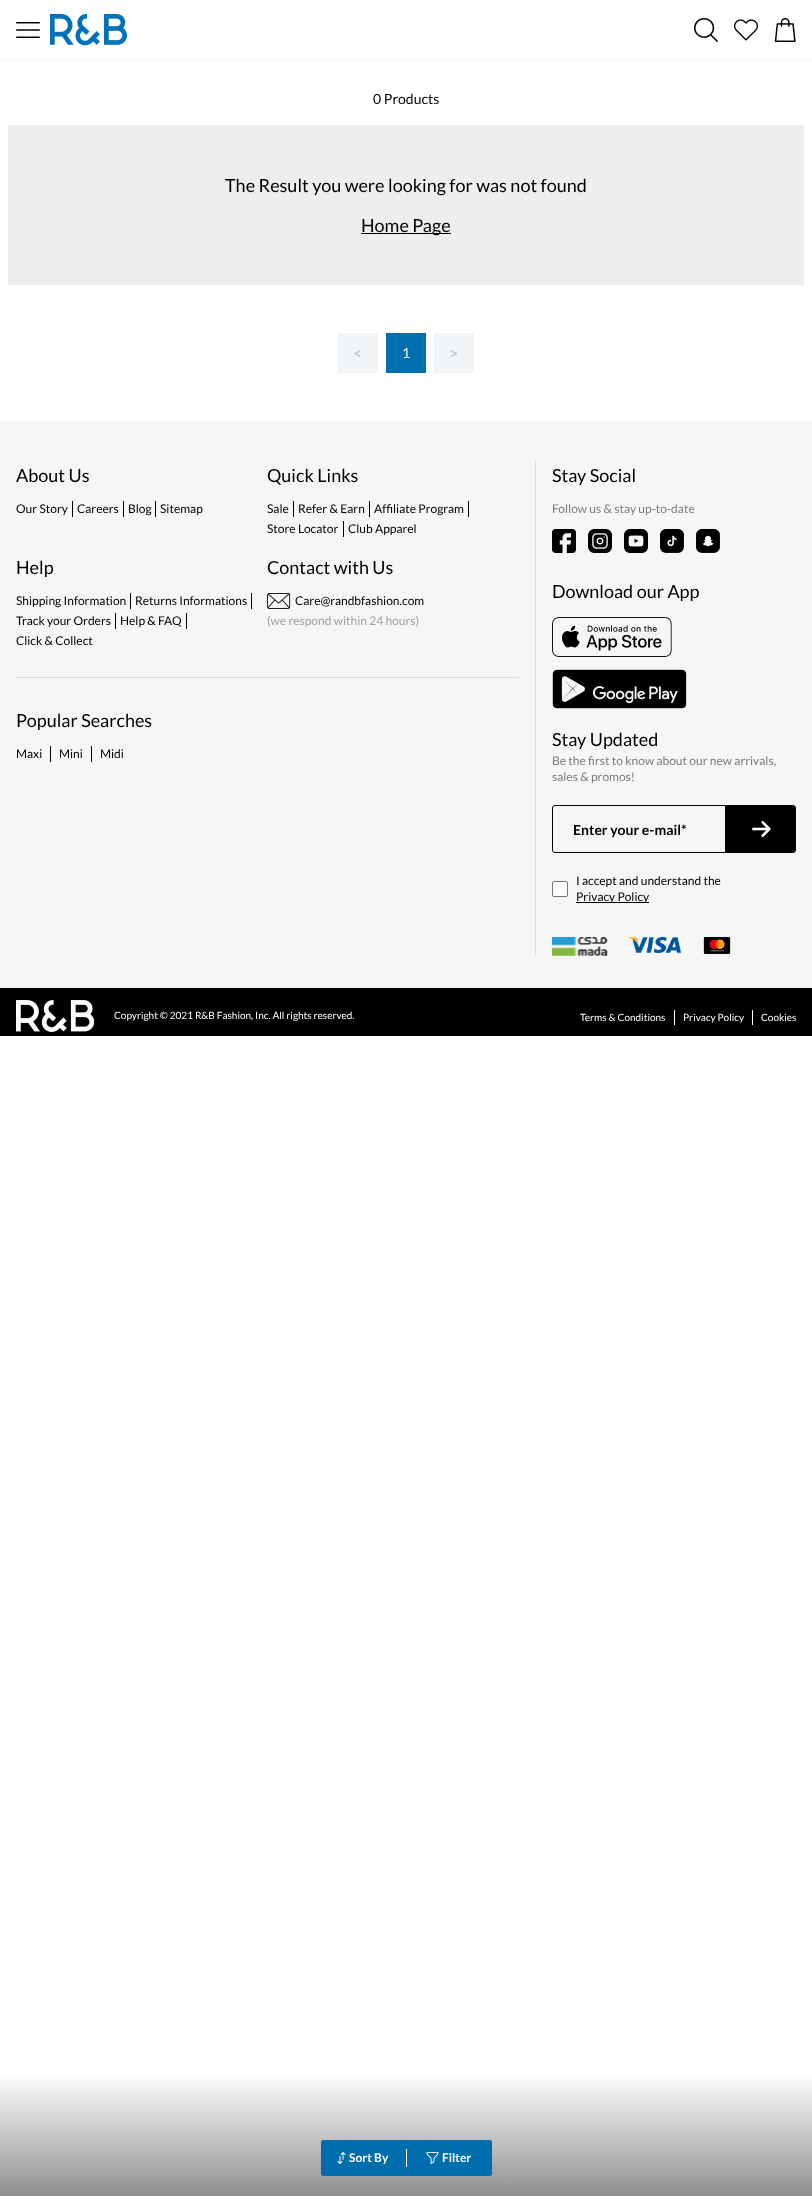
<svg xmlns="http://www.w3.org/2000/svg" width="812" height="2196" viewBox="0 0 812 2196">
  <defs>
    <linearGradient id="g1" gradientUnits="userSpaceOnUse" x1="406" y1="2071" x2="406" y2="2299"><stop offset="0.01" stop-color="#fff"/><stop offset="0.88" stop-color="#4a4a4a"/><stop offset="1" stop-color="#fff"/></linearGradient>
  </defs>
  <rect width="100%" height="100%" fill="#fff"/>
  <path d="M0 60h812v1H0z" fill="#f5f5f5"/>
  <image x="16" y="22" width="24" height="16" href="img/1.png"/>
  <image x="50" y="14" width="77" height="32" href="img/2.png"/>
  <image x="694" y="18" width="24" height="24" href="img/3.png"/>
  <image x="734" y="19" width="24" height="22" href="img/4.png"/>
  <image x="774" y="18" width="22" height="24" href="img/5.png"/>
  <path d="M8 125h796v160H8z" fill="#eee"/>
  <path d="M361 233h90v1H361z" fill="#000"/>
  <path d="M0 2076h812v120H0z" fill="url(#g1)"/>
  <rect x="321" y="2140" width="171" height="36" rx="3" fill="#006ead"/>
  <rect x="321.5" y="2140.5" width="84" height="35" rx="2.5" fill="#006ead" stroke="#006ead"/>
  <image x="337" y="2152" width="9" height="12" href="img/6.png"/>
  <path d="M406 2149h1v18H406z" fill="#fff"/>
  <rect x="407.5" y="2140.5" width="84" height="35" rx="2.5" fill="#006ead" stroke="#006ead"/>
  <image x="426" y="2152" width="13" height="12" href="img/7.png"/>
  <path d="M338 333h40v40H338z" fill="#f1f5f7"/>
  <path d="M386 333h40v40H386z" fill="#006fae"/>
  <path d="M434 333h40v40H434z" fill="#f1f5f7"/>
  <path d="M0 421h812v567H0z" fill="#f6f6f6"/>
  <path d="M535 461h1v495H535z" fill="#ddd"/>
  <path d="M72 501h1v16H72z" fill="#000"/>
  <path d="M123 501h1v16H123z" fill="#000"/>
  <path d="M155 501h1v16H155z" fill="#000"/>
  <path d="M293 501h1v16H293z" fill="#000"/>
  <path d="M369 501h1v16H369z" fill="#000"/>
  <path d="M468 501h1v16H468z" fill="#000"/>
  <path d="M343 521h1v16H343z" fill="#000"/>
  <path d="M130 593h1v16H130z" fill="#000"/>
  <path d="M251 593h1v16H251z" fill="#000"/>
  <path d="M115 613h1v16H115z" fill="#000"/>
  <path d="M186 613h1v16H186z" fill="#000"/>
  <image x="267" y="593" width="24" height="16" href="img/8.png"/>
  <path d="M16 677h503v1H16z" fill="#ddd"/>
  <path d="M50 746h1v16H50z" fill="#000"/>
  <path d="M91 746h1v16H91z" fill="#000"/>
  <image x="552" y="529" width="24" height="24" href="img/9.png"/>
  <image x="588" y="529" width="24" height="24" href="img/10.png"/>
  <image x="624" y="529" width="24" height="24" href="img/11.png"/>
  <image x="660" y="529" width="24" height="24" href="img/12.png"/>
  <image x="696" y="529" width="24" height="24" href="img/13.png"/>
  <image x="552" y="617" width="120" height="40" href="img/14.png"/>
  <image x="552" y="669" width="135" height="40" href="img/15.png"/>
  <path d="M555 805.5H725.5V852.5H555C553.5 852.5 552.5 851.5 552.5 850V808C552.5 806.5 553.5 805.5 555 805.5Z" fill="none" stroke="#000"/>
  <path d="M726.5 805.5H793C794.5 805.5 795.5 806.5 795.5 808V850C795.5 851.5 794.5 852.5 793 852.5H726.5Z" fill="#000" stroke="#000"/>
  <image x="752" y="821" width="19" height="16" href="img/16.png"/>
  <rect x="552.5" y="881.5" width="15" height="15" rx="1.5" fill="#fff" stroke="#767676"/>
  <path d="M576 902h73v1H576z" fill="#000"/>
  <image x="552" y="937" width="56" height="19" href="img/17.png"/>
  <image x="628" y="937" width="53" height="16" href="img/18.png"/>
  <image x="703" y="937" width="28" height="17" href="img/19.png"/>
  <path d="M0 988h812v48H0z" fill="#000"/>
  <image x="16" y="1000" width="78" height="32" href="img/20.png"/>
  <path d="M674 1010h1v15H674z" fill="#fff"/>
  <path d="M752 1010h1v15H752z" fill="#fff"/>
  <text x="373" y="104" font-family="Lato" font-size="14" fill="#000">0 Products</text>
  <g font-family="Lato" font-size="18" fill="#000">
    <text x="225" y="192">The Result you were looking for was not found</text>
    <text x="361" y="232">Home Page</text>
  </g>
  <g font-family="Lato" font-size="12" font-weight="bold" fill="#fff">
    <text x="349" y="2162">Sort By</text>
    <text x="442" y="2162">Filter</text>
  </g>
  <text x="353" y="359" font-family="Lato" font-size="16" fill="#b9bdbf">&lt;</text>
  <text x="402" y="358" font-family="Lato" font-size="14" fill="#fff">1</text>
  <text x="449" y="359" font-family="Lato" font-size="16" fill="#b9bdbf">&gt;</text>
  <text x="16" y="482" font-family="Lato" font-size="18" fill="#000">About Us</text>
  <g font-family="Lato" font-size="12" fill="#000">
    <text x="16" y="513">Our Story</text>
    <text x="77" y="513">Careers</text>
    <text x="128" y="513">Blog</text>
    <text x="160" y="513">Sitemap</text>
  </g>
  <text x="267" y="482" font-family="Lato" font-size="18" fill="#000">Quick Links</text>
  <g font-family="Lato" font-size="12" fill="#000">
    <text x="267" y="513">Sale</text>
    <text x="298" y="513">Refer &amp; Earn</text>
    <text x="374" y="513">Affiliate Program</text>
    <text x="267" y="533">Store Locator</text>
    <text x="348" y="533">Club Apparel</text>
  </g>
  <text x="16" y="574" font-family="Lato" font-size="18" fill="#000">Help</text>
  <g font-family="Lato" font-size="12" fill="#000">
    <text x="16" y="605">Shipping Information</text>
    <text x="135" y="605">Returns Informations</text>
    <text x="16" y="625">Track your Orders</text>
    <text x="120" y="625">Help &amp; FAQ</text>
    <text x="16" y="645">Click &amp; Collect</text>
  </g>
  <text x="267" y="574" font-family="Lato" font-size="18" fill="#000">Contact with Us</text>
  <text x="295" y="605" font-family="Lato" font-size="12" fill="#000">Care@randbfashion.com</text>
  <text x="267" y="625" font-family="Lato" font-size="12" fill="#a0a0a0">(we respond within 24 hours)</text>
  <text x="16" y="727" font-family="Lato" font-size="18" fill="#000">Popular Searches</text>
  <g font-family="Lato" font-size="12" fill="#000">
    <text x="16" y="758">Maxi</text>
    <text x="59" y="758">Mini</text>
    <text x="100" y="758">Midi</text>
  </g>
  <text x="552" y="482" font-family="Lato" font-size="18" fill="#000">Stay Social</text>
  <text x="552" y="513" font-family="Lato" font-size="12" fill="#7c7c7c">Follow us &amp; stay up-to-date</text>
  <g font-family="Lato" font-size="18" fill="#000">
    <text x="552" y="598">Download our App</text>
    <text x="552" y="746">Stay Updated</text>
  </g>
  <g font-family="Lato" font-size="12" fill="#7c7c7c">
    <text x="552" y="765">Be the first to know about our new arrivals,</text>
    <text x="552" y="781">sales &amp; promos!</text>
  </g>
  <text x="573" y="835" font-family="Lato" font-size="14" font-weight="bold" fill="#000">Enter your e-mail*</text>
  <g font-family="Lato" font-size="12" fill="#000">
    <text x="576" y="885">I accept and understand the</text>
    <text x="576" y="901">Privacy Policy</text>
  </g>
  <g font-family="Lato" font-size="10" fill="#fff">
    <text x="114" y="1019">Copyright © 2021 R&amp;B Fashion, Inc. All rights reserved.</text>
    <text x="580" y="1021">Terms &amp; Conditions</text>
    <text x="683" y="1021">Privacy Policy</text>
    <text x="761" y="1021">Cookies</text>
  </g>
</svg>
